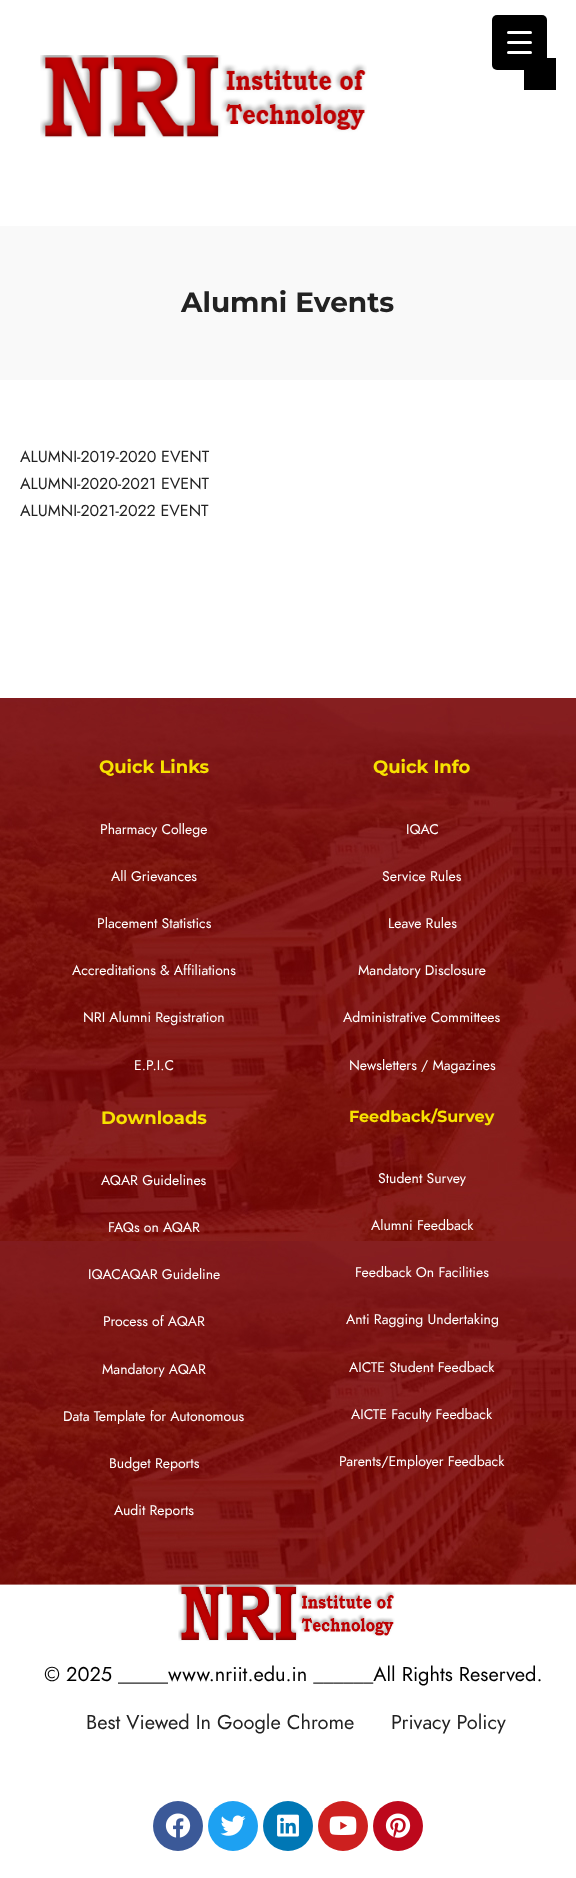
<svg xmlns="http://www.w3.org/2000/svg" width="576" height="1878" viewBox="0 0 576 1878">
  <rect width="100%" height="100%" fill="#fff"/>
  <path d="M524 58h32v32H524z" fill="#000"/>
  <rect x="492" y="15" width="55" height="55" rx="5" fill="#000"/>
  <rect x="507" y="41" width="25" height="3" rx="1.5" fill="#fff"/>
  <rect x="507" y="31" width="25" height="3" rx="1.5" fill="#fff"/>
  <rect x="507" y="51" width="25" height="3" rx="1.5" fill="#fff"/>
  <image x="40" y="55" width="327" height="83" href="img/1.png"/>
  <path d="M0 226h576v154H0z" fill="#f9f9f9"/>
  <image x="0" y="698" width="576" height="887" href="img/2.png"/>
  <path d="M0 1584h576v1H0z" fill="#ffffff66"/>
  <image x="178" y="1585" width="217" height="56" href="img/3.png"/>
  <circle cx="178" cy="1826" r="25" fill="#3b5998"/>
  <image x="165" y="1813" width="26" height="25" href="img/4.png"/>
  <circle cx="233" cy="1826" r="25" fill="#1da1f2"/>
  <image x="220" y="1815" width="26" height="21" href="img/5.png"/>
  <circle cx="288" cy="1826" r="25" fill="#0077b5"/>
  <image x="277" y="1814" width="22" height="23" href="img/6.png"/>
  <circle cx="343" cy="1826" r="25" fill="#cd201f"/>
  <image x="329" y="1816" width="28" height="19" href="img/7.png"/>
  <circle cx="398" cy="1826" r="25" fill="#bd081c"/>
  <image x="385" y="1813" width="26" height="25" href="img/8.png"/>
  <text x="181" y="312" font-family="Montserrat" font-size="28" font-weight="100" fill="#222">Alumni Events</text>
  <g font-family="Jost" font-size="16" fill="#222">
    <text x="20" y="462">ALUMNI-2019-2020 EVENT</text>
    <text x="20" y="489">ALUMNI-2020-2021 EVENT</text>
    <text x="20" y="516">ALUMNI-2021-2022 EVENT</text>
  </g>
  <text x="99" y="773" font-family="Montserrat" font-size="18" font-weight="100" fill="#f7e200">Quick Links</text>
  <g font-family="Jost" font-size="14" fill="#fff">
    <text x="100" y="834">Pharmacy College</text>
    <text x="111" y="881">All Grievances</text>
    <text x="97" y="928">Placement Statistics</text>
    <text x="72" y="975">Accreditations &amp; Affiliations</text>
    <text x="83" y="1022">NRI Alumni Registration</text>
    <text x="134" y="1070">E.P.I.C</text>
  </g>
  <text x="373" y="773" font-family="Montserrat" font-size="18" font-weight="100" fill="#f7e200">Quick Info</text>
  <g font-family="Jost" font-size="14" fill="#fff">
    <text x="406" y="834">IQAC</text>
    <text x="382" y="881">Service Rules</text>
    <text x="388" y="928">Leave Rules</text>
    <text x="358" y="975">Mandatory Disclosure</text>
    <text x="343" y="1022">Administrative Committees</text>
    <text x="349" y="1070">Newsletters / Magazines</text>
  </g>
  <text x="101" y="1124" font-family="Montserrat" font-size="18" font-weight="100" fill="#f7e200">Downloads</text>
  <g font-family="Jost" font-size="14" fill="#fff">
    <text x="101" y="1185">AQAR Guidelines</text>
    <text x="108" y="1232">FAQs on AQAR</text>
    <text x="88" y="1279">IQACAQAR Guideline</text>
    <text x="103" y="1326">Process of AQAR</text>
    <text x="102" y="1374">Mandatory AQAR</text>
    <text x="63" y="1421">Data Template for Autonomous</text>
    <text x="109" y="1468">Budget Reports</text>
    <text x="114" y="1515">Audit Reports</text>
  </g>
  <text x="349" y="1122" font-family="Montserrat" font-size="16" font-weight="100" fill="#f7e200">Feedback/Survey</text>
  <g font-family="Jost" font-size="14" fill="#fff">
    <text x="378" y="1183">Student Survey</text>
    <text x="371" y="1230">Alumni Feedback</text>
    <text x="355" y="1277">Feedback On Facilities</text>
    <text x="346" y="1324">Anti Ragging Undertaking</text>
    <text x="349" y="1372">AICTE Student Feedback</text>
    <text x="351" y="1419">AICTE Faculty Feedback</text>
    <text x="339" y="1466">Parents/Employer Feedback</text>
  </g>
  <text x="44" y="1681" font-family="Jost" font-size="20" fill="#000">© 2025 _____www.nriit.edu.in ______All Rights Reserved.</text>
  <g font-family="Jost" font-size="20" fill="#222">
    <text x="86" y="1729">Best Viewed In Google Chrome</text>
    <text x="391" y="1729">Privacy Policy</text>
  </g>
</svg>
